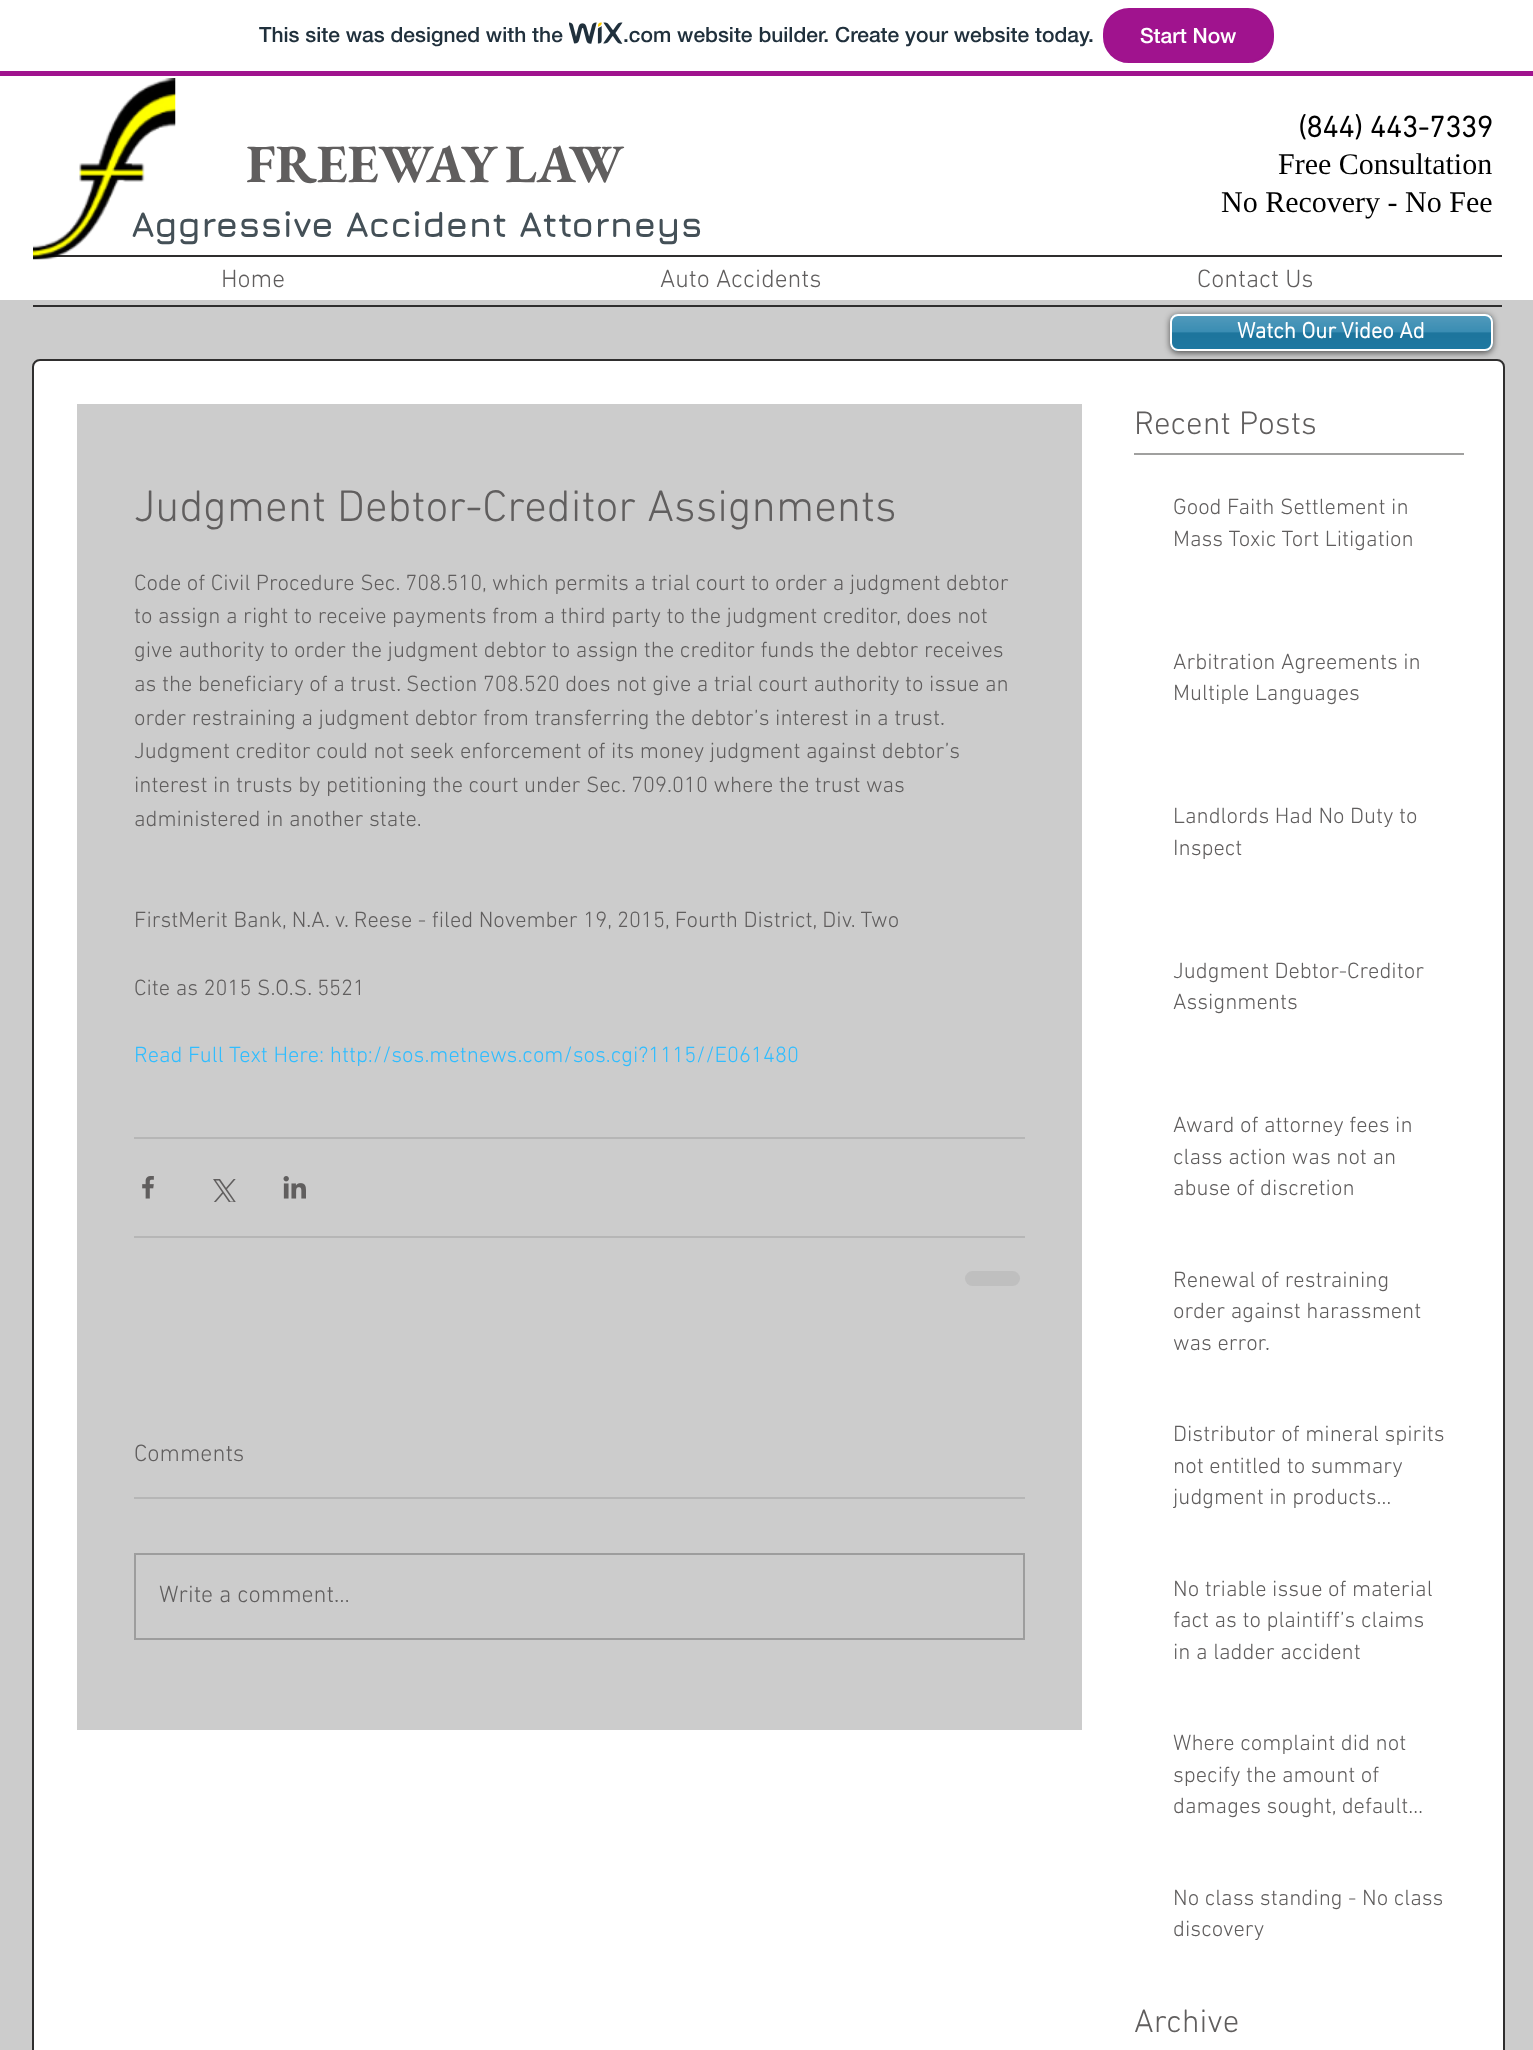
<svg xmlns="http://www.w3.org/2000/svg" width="1533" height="2050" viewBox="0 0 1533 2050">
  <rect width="100%" height="100%" fill="#fff"/>
  <path d="M0 71h1533v5H0z" fill="#a0138e"/>
  <image x="569" y="22" width="54" height="22" href="img/1.png"/>
  <rect x="1104" y="9" width="169" height="53" rx="25" fill="#a0138e" stroke="#a0138e" stroke-width="2"/>
  <path d="M33 255h1469v2H33z" fill="#2f2e2e"/>
  <path d="M0 300h1533v1750H0z" fill="#ccc"/>
  <path d="M33 305h1469v2H33z" fill="#2f2e2e"/>
  <rect x="33" y="360" width="1471" height="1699" rx="7" fill="#fff" stroke="#2f2e2e" stroke-width="2"/>
  <rect x="1170" y="315" width="323" height="38" rx="8" fill="#00000099" filter="blur(3px)"/>
  <rect x="1170" y="314" width="323" height="37" rx="8" fill="#207ea9"/>
  <image x="1170" y="313" width="323" height="38" href="img/3.png"/>
  <rect x="1171" y="315" width="321" height="35" rx="7" fill="none" stroke="#fff" stroke-width="2"/>
  <path d="M1134 453h330v2H1134z" fill="#a0a09f"/>
  <path d="M77 404h1005v1326H77z" fill="#ccc"/>
  <path d="M134 1137h891v2H134z" fill="#b6b6b6"/>
  <image x="142" y="1176" width="12" height="23" href="img/4.png"/>
  <image x="213" y="1179" width="23" height="23" href="img/5.png"/>
  <image x="283" y="1176" width="23" height="23" href="img/6.png"/>
  <path d="M134 1236h891v2H134z" fill="#b6b6b6"/>
  <rect x="965" y="1271" width="55" height="15" rx="7.5" fill="#bfbfbf"/>
  <path d="M134 1497h891v2H134z" fill="#b6b6b6"/>
  <path d="M135 1554h889v85H135z" fill="none" stroke="#9d9d9d" stroke-width="2"/>
  <g font-family="'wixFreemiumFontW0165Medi'" font-size="21" font-weight="500" fill="#20303c">
    <text x="259" y="42">This site was designed with the</text>
    <text x="623" y="42">.com website builder. Create your website today.</text>
  </g>
  <text x="1140" y="43" font-family="'wixFreemiumFontW0165Medi'" font-size="21" font-weight="500" fill="#fff">Start Now</text>
  <text x="246" y="182" font-family="EB Garamond" font-size="54" font-weight="bold" fill="#605e5e">FREEWAY LAW</text>
  <text x="1298" y="137" font-family="'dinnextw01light'" font-size="30" font-weight="bold" fill="#000">(844) 443-7339</text>
  <g font-family="Liberation Serif" font-size="30" fill="#000">
    <text x="1278" y="174">Free Consultation</text>
    <text x="1221" y="212">No Recovery - No Fee</text>
  </g>
  <text x="131" y="237" font-family="Jura" font-size="36" font-weight="bold" fill="#445057">Aggressive Accident Attorneys</text>
  <image x="33" y="78" width="143" height="182" href="img/2.png"/>
  <g font-family="'dinnextw01light'" font-size="25.5" font-weight="300" fill="#605e5e">
    <text x="221" y="287">Home</text>
    <text x="660" y="287">Auto Accidents</text>
    <text x="1197" y="287">Contact Us</text>
  </g>
  <text x="1237" y="338" font-family="'dinnextw01light'" font-size="22.5" font-weight="bold" fill="#fff">Watch Our Video Ad</text>
  <text x="1134" y="434" font-family="'dinnextw01light'" font-size="33" font-weight="300" fill="#605e5e">Recent Posts</text>
  <text x="134" y="521" font-family="'dinnextw01light'" font-size="45" font-weight="300" fill="#605e5e">Judgment Debtor-Creditor Assignments</text>
  <g font-family="'dinnextw01light'" font-size="22.5" font-weight="300" fill="#605e5e">
    <text x="134" y="590">Code of Civil Procedure Sec. 708.510, which permits a trial court to order a judgment debtor</text>
    <text x="134" y="623">to assign a right to receive payments from a third party to the judgment creditor, does not</text>
    <text x="134" y="657">give authority to order the judgment debtor to assign the creditor funds the debtor receives</text>
    <text x="134" y="691">as the beneficiary of a trust. Section 708.520 does not give a trial court authority to issue an</text>
    <text x="134" y="725">order restraining a judgment debtor from transferring the debtor’s interest in a trust.</text>
    <text x="134" y="758">Judgment creditor could not seek enforcement of its money judgment against debtor’s</text>
    <text x="134" y="792">interest in trusts by petitioning the court under Sec. 709.010 where the trust was</text>
    <text x="134" y="826">administered in another state.</text>
    <text x="134" y="927">FirstMerit Bank, N.A. v. Reese - filed November 19, 2015, Fourth District, Div. Two</text>
    <text x="134" y="995">Cite as 2015 S.O.S. 5521</text>
  </g>
  <text x="134" y="1062" font-family="'dinnextw01light'" font-size="22.5" font-weight="300" fill="#30bdff">Read Full Text Here: http://sos.metnews.com/sos.cgi?1115//E061480</text>
  <g font-family="'dinnextw01light'" font-size="24" font-weight="300" fill="#605e5e">
    <text x="134" y="1461">Comments</text>
    <text x="159" y="1602">Write a comment...</text>
  </g>
  <g font-family="'dinnextw01light'" font-size="22.5" font-weight="300" fill="#605e5e">
    <text x="1173" y="514">Good Faith Settlement in</text>
    <text x="1173" y="546">Mass Toxic Tort Litigation</text>
    <text x="1173" y="669">Arbitration Agreements in</text>
    <text x="1173" y="700">Multiple Languages</text>
    <text x="1173" y="823">Landlords Had No Duty to</text>
    <text x="1173" y="855">Inspect</text>
    <text x="1173" y="978">Judgment Debtor-Creditor</text>
    <text x="1173" y="1009">Assignments</text>
    <text x="1173" y="1132">Award of attorney fees in</text>
    <text x="1173" y="1164">class action was not an</text>
    <text x="1173" y="1195">abuse of discretion</text>
    <text x="1173" y="1287">Renewal of restraining</text>
    <text x="1173" y="1318">order against harassment</text>
    <text x="1173" y="1350">was error.</text>
    <text x="1173" y="1441">Distributor of mineral spirits</text>
    <text x="1173" y="1473">not entitled to summary</text>
    <text x="1173" y="1504">judgment in products…</text>
    <text x="1173" y="1596">No triable issue of material</text>
    <text x="1173" y="1627">fact as to plaintiff’s claims</text>
    <text x="1173" y="1659">in a ladder accident</text>
    <text x="1173" y="1750">Where complaint did not</text>
    <text x="1173" y="1782">specify the amount of</text>
    <text x="1173" y="1813">damages sought, default…</text>
    <text x="1173" y="1905">No class standing - No class</text>
    <text x="1173" y="1936">discovery</text>
  </g>
  <text x="1134" y="2032" font-family="'dinnextw01light'" font-size="33" font-weight="300" fill="#605e5e">Archive</text>
</svg>
